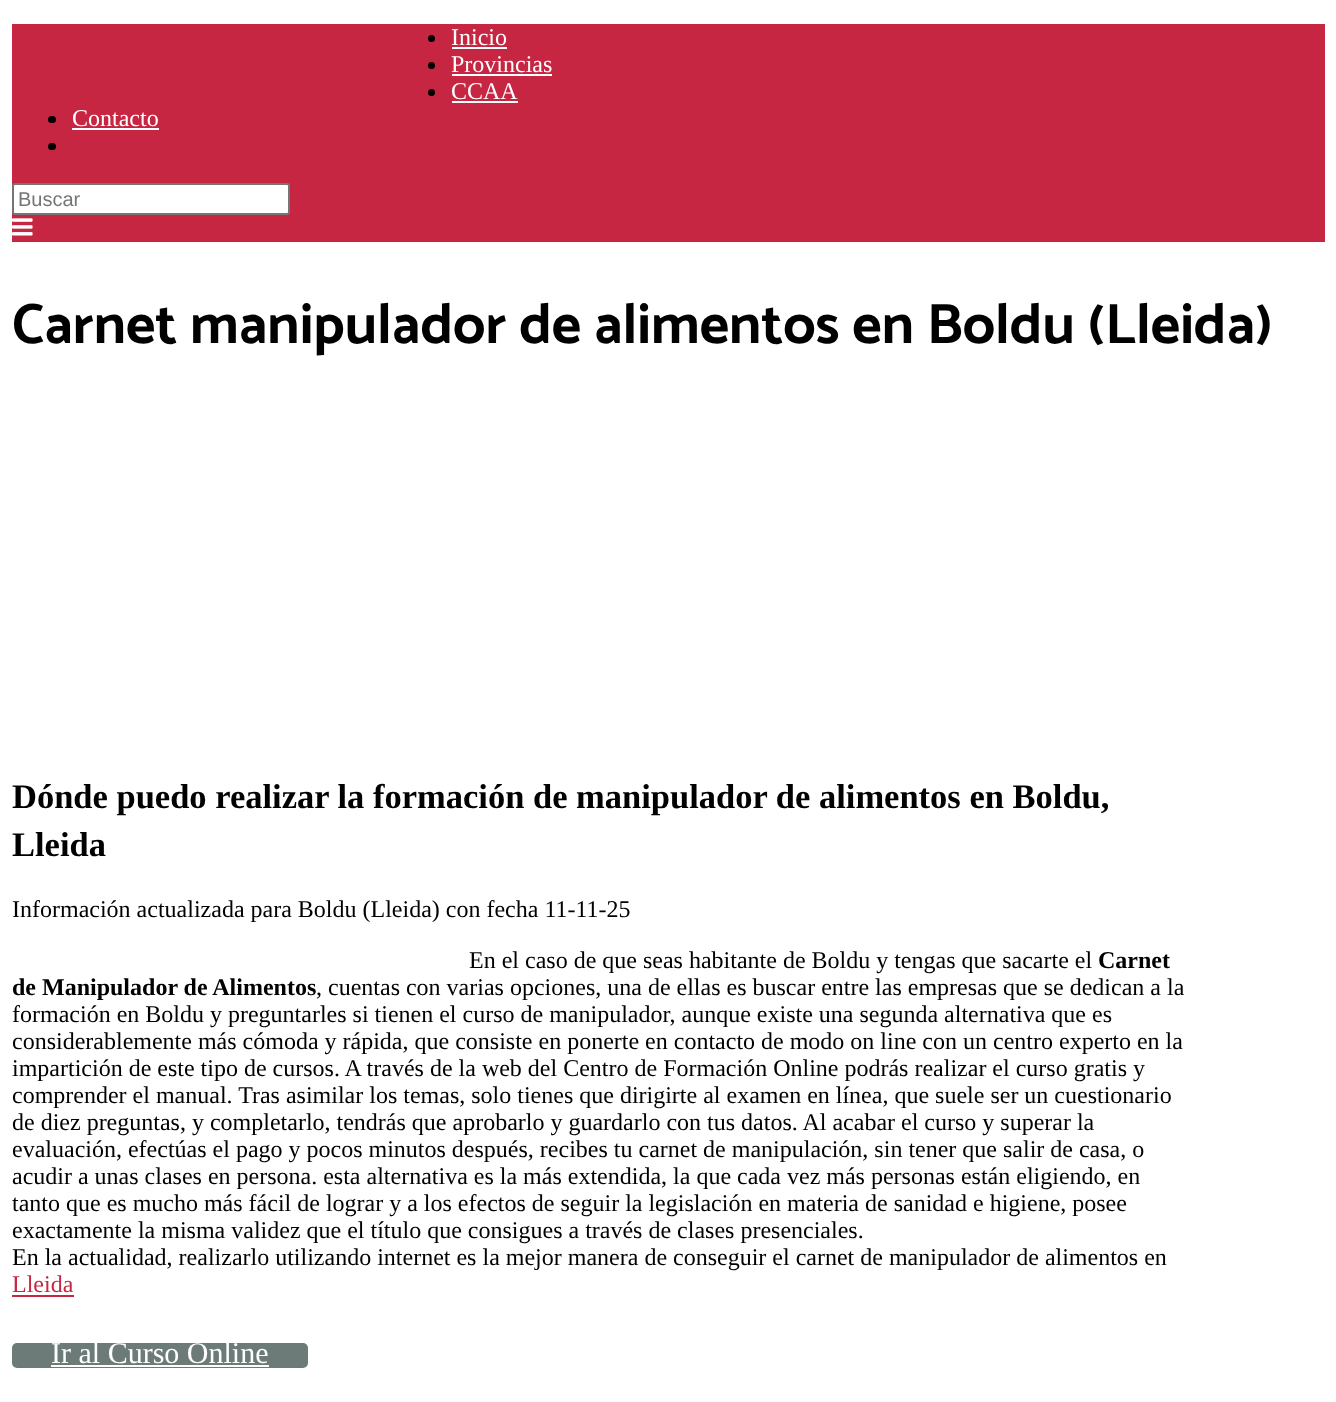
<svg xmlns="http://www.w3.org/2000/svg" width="1336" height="1402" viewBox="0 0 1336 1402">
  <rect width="100%" height="100%" fill="#fff"/>
  <path d="M12 24h1313v218H12z" fill="#c62641"/>
  <circle cx="431.5" cy="38.5" r="3.5" fill="#000"/>
  <path d="M452 47h55v2H452z" fill="#fff"/>
  <circle cx="431.5" cy="65.5" r="3.5" fill="#000"/>
  <path d="M452 74h100v2H452z" fill="#fff"/>
  <circle cx="431.5" cy="92.5" r="3.5" fill="#000"/>
  <path d="M452 101h66v2H452z" fill="#fff"/>
  <rect x="48" y="116" width="8" height="7" rx="3.5" fill="#000"/>
  <path d="M72 128h87v2H72z" fill="#fff"/>
  <rect x="48" y="143" width="8" height="7" rx="3.5" fill="#000"/>
  <rect x="13" y="184" width="276" height="30" rx="2" fill="#fff" stroke="#767676" stroke-width="2"/>
  <image x="12" y="218" width="21" height="18" href="img/1.png"/>
  <path d="M12 1295h62v2H12z" fill="#c62641"/>
  <rect x="12" y="1343" width="296" height="25" rx="5" fill="#6c7b78"/>
  <path d="M51 1365h218v2H51z" fill="#fff"/>
  <g font-family="Liberation Serif" font-size="24" fill="#fff">
    <text x="451" y="45">Inicio</text>
    <text x="451" y="72">Provincias</text>
    <text x="451" y="99">CCAA</text>
    <text x="72" y="126">Contacto</text>
  </g>
  <text x="18" y="206" font-family="Liberation Sans" font-size="20" fill="#757575">Buscar</text>
  <text x="12" y="343" font-family="Catamaran" font-size="57" font-weight="bold" fill="#000">Carnet manipulador de alimentos en Boldu (Lleida)</text>
  <g font-family="Liberation Serif" font-size="34.5" font-weight="bold" fill="#000">
    <text x="12" y="808">Dónde puedo realizar la formación de manipulador de alimentos en Boldu,</text>
    <text x="12" y="856">Lleida</text>
  </g>
  <g font-family="Liberation Serif" font-size="24" fill="#000">
    <text x="12" y="917">Información actualizada para Boldu (Lleida) con fecha 11-11-25</text>
    <text x="469" y="968">En el caso de que seas habitante de Boldu y tengas que sacarte el</text>
  </g>
  <g font-family="Liberation Serif" font-size="24" font-weight="bold" fill="#000">
    <text x="1098" y="968">Carnet</text>
    <text x="12" y="995">de Manipulador de Alimentos</text>
  </g>
  <g font-family="Liberation Serif" font-size="24" fill="#000">
    <text x="316" y="995">, cuentas con varias opciones, una de ellas es buscar entre las empresas que se dedican a la</text>
    <text x="12" y="1022">formación en Boldu y preguntarles si tienen el curso de manipulador, aunque existe una segunda alternativa que es</text>
    <text x="12" y="1049">considerablemente más cómoda y rápida, que consiste en ponerte en contacto de modo on line con un centro experto en la</text>
    <text x="12" y="1076">impartición de este tipo de cursos. A través de la web del Centro de Formación Online podrás realizar el curso gratis y</text>
    <text x="12" y="1103">comprender el manual. Tras asimilar los temas, solo tienes que dirigirte al examen en línea, que suele ser un cuestionario</text>
    <text x="12" y="1130">de diez preguntas, y completarlo, tendrás que aprobarlo y guardarlo con tus datos. Al acabar el curso y superar la</text>
    <text x="12" y="1157">evaluación, efectúas el pago y pocos minutos después, recibes tu carnet de manipulación, sin tener que salir de casa, o</text>
    <text x="12" y="1184">acudir a unas clases en persona. esta alternativa es la más extendida, la que cada vez más personas están eligiendo, en</text>
    <text x="12" y="1211">tanto que es mucho más fácil de lograr y a los efectos de seguir la legislación en materia de sanidad e higiene, posee</text>
    <text x="12" y="1238">exactamente la misma validez que el título que consigues a través de clases presenciales.</text>
    <text x="12" y="1265">En la actualidad, realizarlo utilizando internet es la mejor manera de conseguir el carnet de manipulador de alimentos en</text>
  </g>
  <text x="12" y="1292" font-family="Liberation Serif" font-size="24" fill="#c62641">Lleida</text>
  <text x="51" y="1363" font-family="Liberation Serif" font-size="30" fill="#fff">Ir al Curso Online</text>
</svg>
